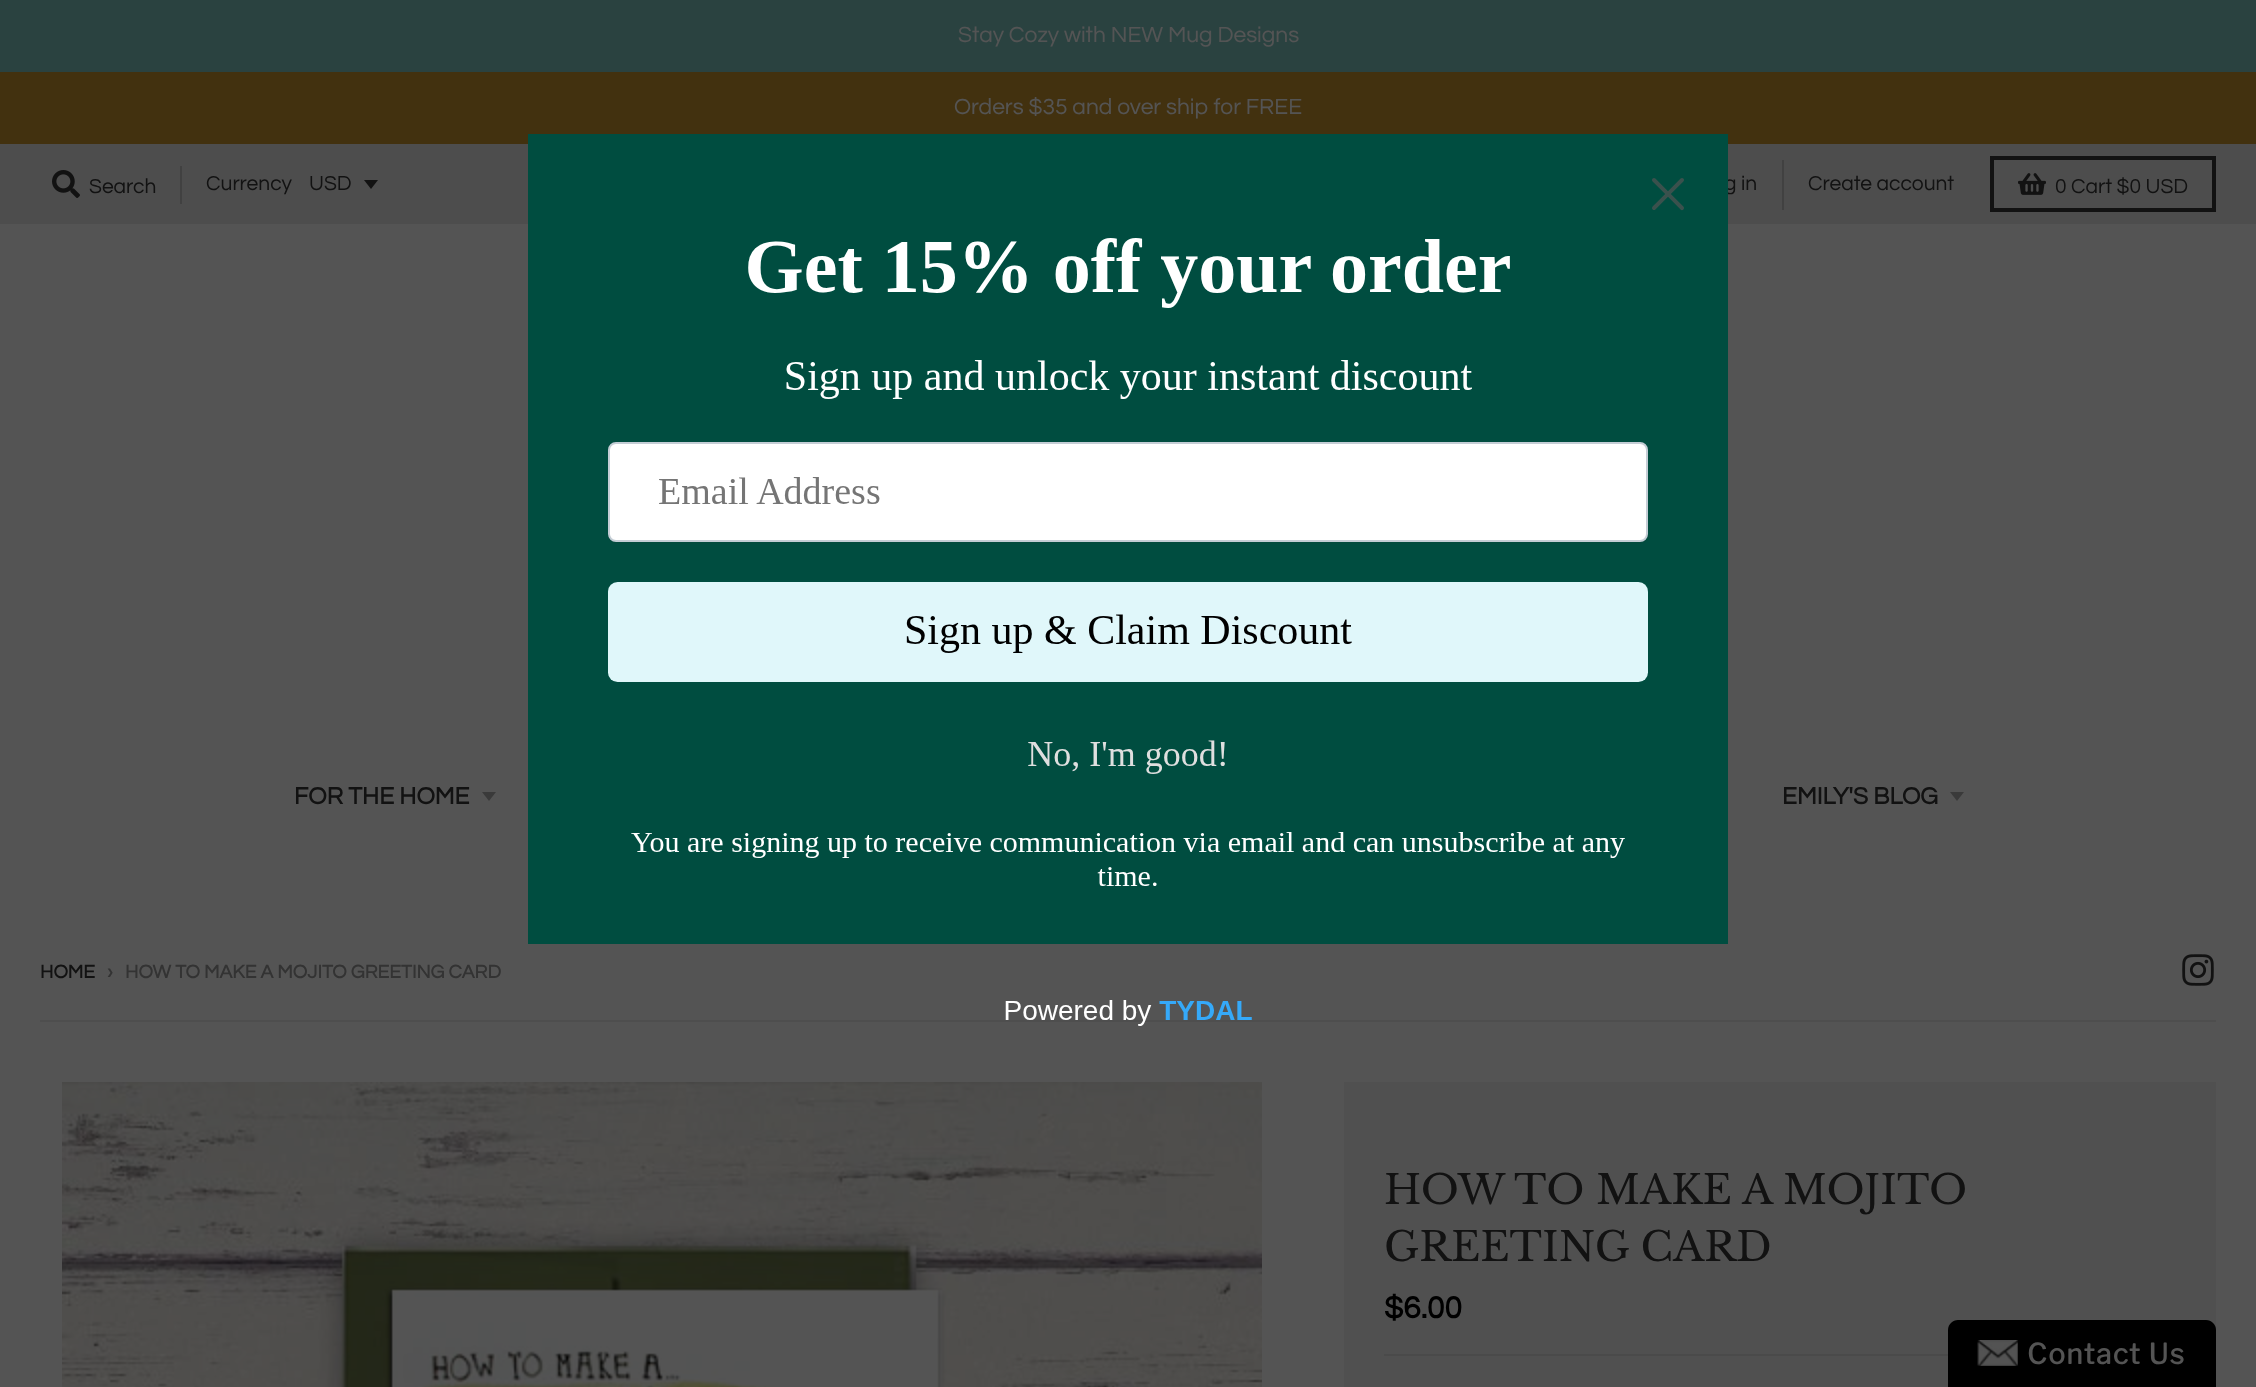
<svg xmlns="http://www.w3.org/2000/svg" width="2256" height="1387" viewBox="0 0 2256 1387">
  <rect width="100%" height="100%" fill="#fff"/>
  <path d="M0 0h2256v72H0z" fill="#7fc8c3"/>
  <path d="M0 72h2256v72H0z" fill="#c99430"/>
  <path d="M0 144h2256v80H0z" fill="#e9e9e9"/>
  <image x="52" y="170" width="28" height="28" href="img/2.png"/>
  <path d="M180 166h2v38H180z" fill="#c5c5c5"/>
  <path d="M364 180L371 189L378 180Z" fill="#373737"/>
  <path d="M1782 160h2v50H1782z" fill="#c5c5c5"/>
  <path d="M1992 158h222v52H1992z" fill="none" stroke="#373737" stroke-width="4"/>
  <image x="2018" y="173" width="28" height="22" href="img/3.png"/>
  <path d="M482 792L489 801L496 792Z" fill="#afafaf"/>
  <path d="M1950 792L1957 801L1964 792Z" fill="#afafaf"/>
  <image x="2182" y="954" width="32" height="32" href="img/4.png"/>
  <path d="M40 1020h2176v2H40z" fill="#ebebeb"/>
  <image x="62" y="1082" width="1200" height="305" href="img/5.png"/>
  <path d="M1344 1082h872v305H1344z" fill="#f3f3f3"/>
  <path d="M1384 1354h564v2H1384z" fill="#e0e0e0"/>
  <path d="M1958 1320H2206C2211.5 1320 2216 1324.5 2216 1330V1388H1948V1330C1948 1324.5 1952.5 1320 1958 1320Z" fill="#000"/>
  <image x="1977" y="1340" width="41" height="26" href="img/6.png"/>
  <g font-family="Questrial" font-size="22.75" fill="#fff">
    <text x="958" y="42">Stay Cozy with NEW Mug Designs</text>
    <text x="954" y="114">Orders $35 and over ship for FREE</text>
  </g>
  <g font-family="Questrial" font-size="21" fill="#373737">
    <text x="89" y="193">Search</text>
    <text x="206" y="190">Currency</text>
    <text x="309" y="190">USD</text>
    <text x="1724" y="190">g in</text>
    <text x="1808" y="190">Create account</text>
    <text x="2055" y="193">0 Cart $0 USD</text>
  </g>
  <g font-family="Questrial" font-size="24.5" font-weight="bold" fill="#373737">
    <text x="294" y="804">FOR THE HOME</text>
    <text x="1782" y="804">EMILY'S BLOG</text>
  </g>
  <text x="40" y="978" font-family="Questrial" font-size="19.25" font-weight="bold" fill="#373737">HOME</text>
  <g font-family="Questrial" font-size="19.25" font-weight="bold" fill="#9b9b9b">
    <text x="107" y="978">›</text>
    <text x="125" y="978">HOW TO MAKE A MOJITO GREETING CARD</text>
  </g>
  <g font-family="Libre Baskerville" font-size="40.4" fill="#373737">
    <text x="1384" y="1204">HOW TO MAKE A MOJITO</text>
    <text x="1384" y="1261">GREETING CARD</text>
  </g>
  <text x="1384" y="1318" font-family="Questrial" font-size="31.5" font-weight="bold" fill="#000">$6.00</text>
  <text x="2027" y="1364" font-family="Libre Franklin" font-size="28" font-weight="bold" letter-spacing="1.4" fill="#fff">Contact Us</text>
  <image x="0" y="0" width="2256" height="1387" href="img/1.png"/>
</svg>
